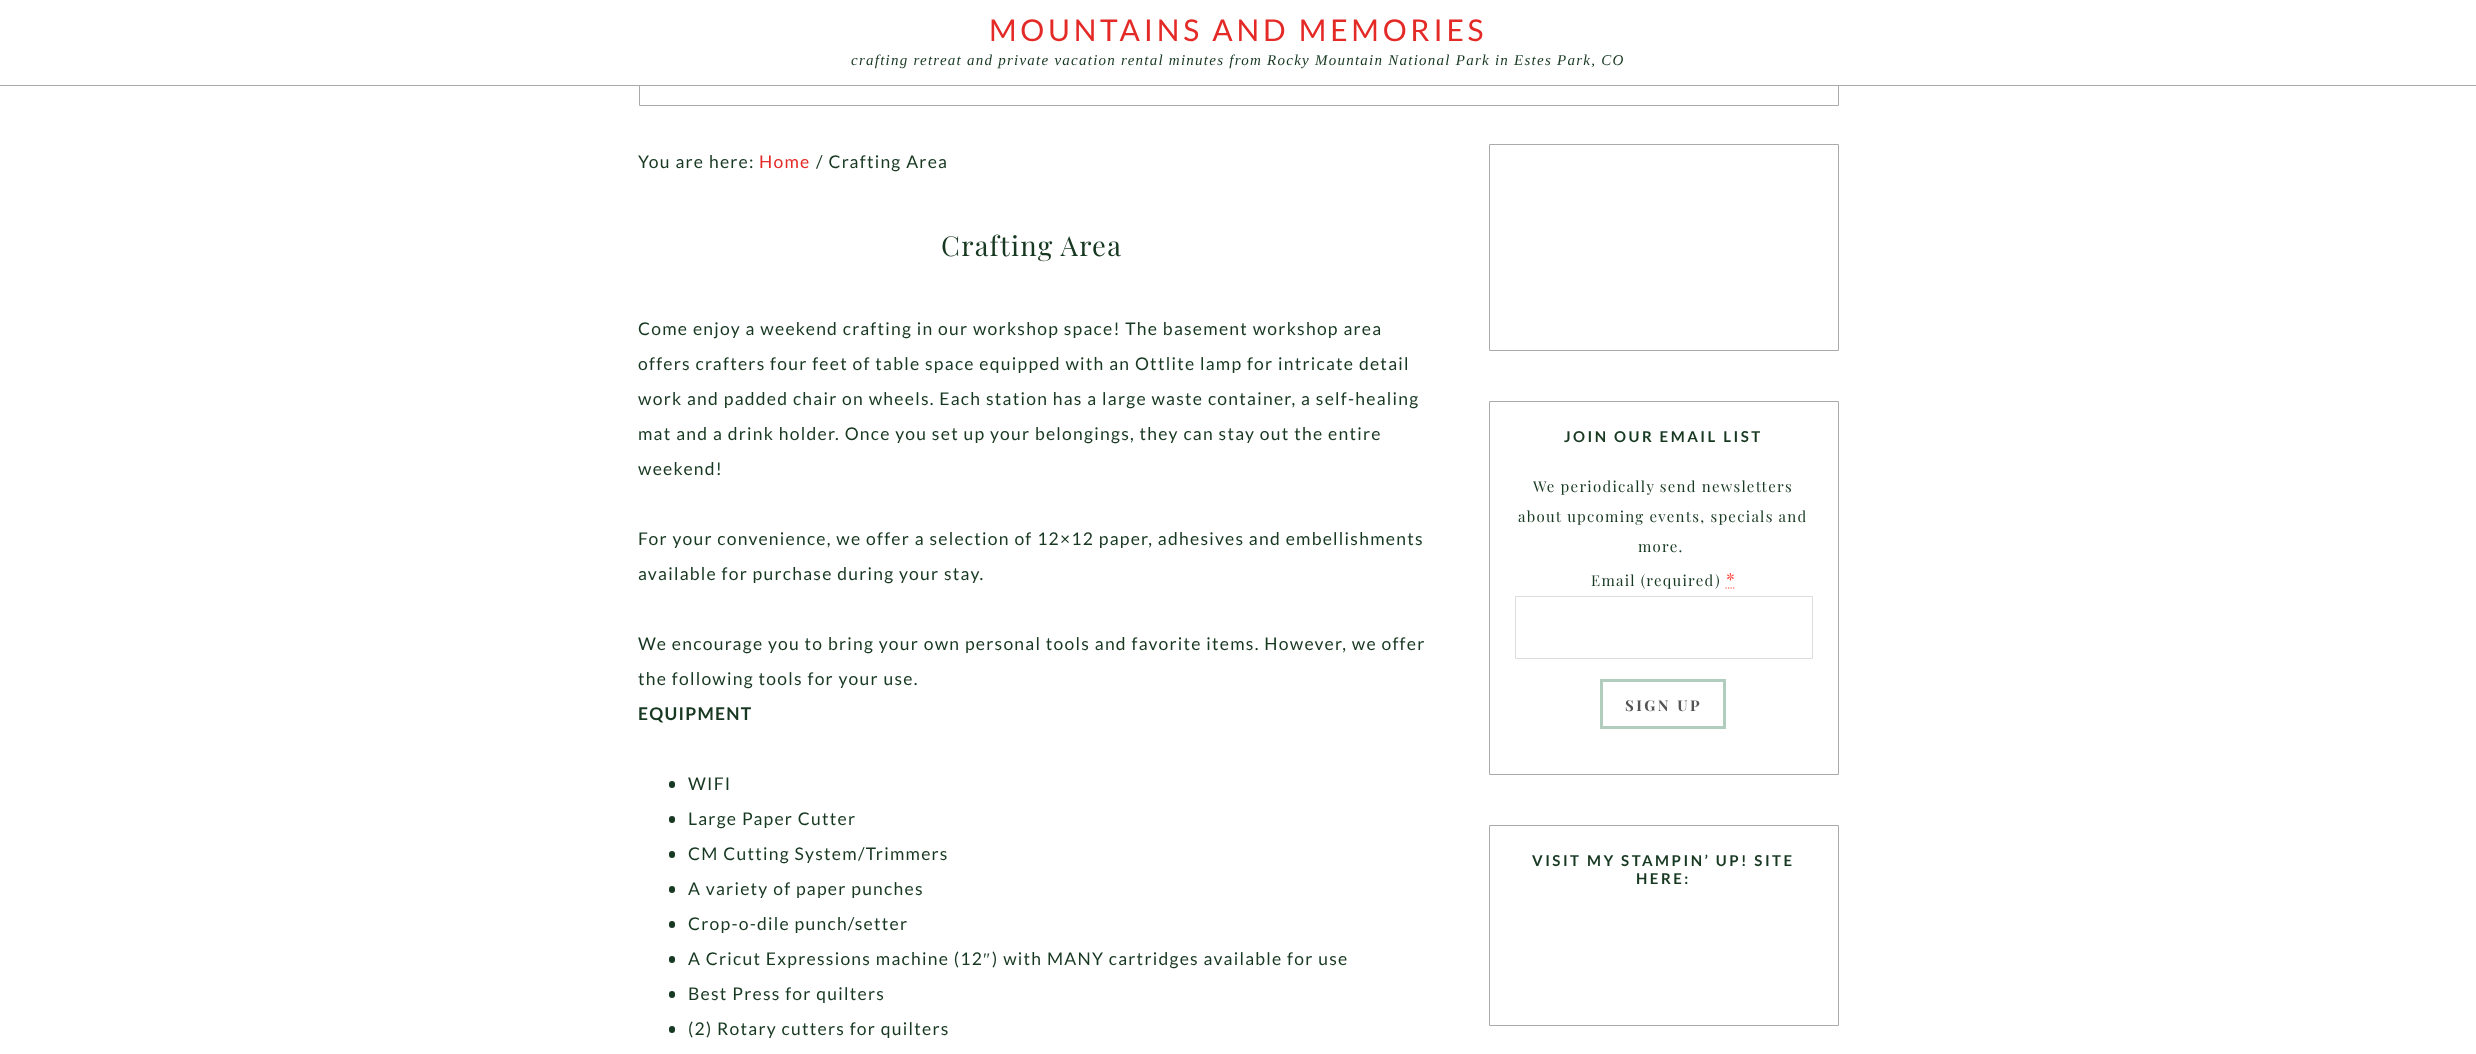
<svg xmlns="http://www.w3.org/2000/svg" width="2476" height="1054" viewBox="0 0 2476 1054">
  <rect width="100%" height="100%" fill="#fff"/>
  <path d="M639.5 53.5h1199v52H639.5z" fill="none" stroke="#aba9a9"/>
  <path d="M639 53h1200v32H639z" fill="#fff"/>
  <path d="M0 85h2476v1H0z" fill="#aba9a9"/>
  <rect x="669" y="781" width="6" height="7" rx="3" fill="#173821"/>
  <rect x="669" y="816" width="6" height="7" rx="3" fill="#173821"/>
  <rect x="669" y="851" width="6" height="7" rx="3" fill="#173821"/>
  <rect x="669" y="886" width="6" height="7" rx="3" fill="#173821"/>
  <rect x="669" y="921" width="6" height="7" rx="3" fill="#173821"/>
  <rect x="669" y="956" width="6" height="7" rx="3" fill="#173821"/>
  <rect x="669" y="991" width="6" height="7" rx="3" fill="#173821"/>
  <rect x="669" y="1026" width="6" height="7" rx="3" fill="#173821"/>
  <path d="M1489.5 144.5h349v206H1489.5z" fill="none" stroke="#aba9a9"/>
  <path d="M1489.5 401.5h349v373H1489.5z" fill="none" stroke="#aba9a9"/>
  <path d="M1725.5 588H1735.5" fill="none" stroke="#ff4136" stroke-width="1.2" stroke-dasharray="1.25 1.25"/>
  <path d="M1515.5 596.5h297v62H1515.5z" fill="none" stroke="#ddd"/>
  <path d="M1601.5 680.5h123v47H1601.5z" fill="none" stroke="#b0cdbd" stroke-width="3"/>
  <path d="M1489.5 825.5h349v200H1489.5z" fill="none" stroke="#aba9a9"/>
  <text x="989" y="41" font-family="Lato" font-size="30" letter-spacing="3.75" fill="#e42a27">MOUNTAINS AND MEMORIES</text>
  <text x="851" y="65" font-family="Liberation Serif" font-size="15" font-style="italic" letter-spacing="1.25" fill="#173821">crafting retreat and private vacation rental minutes from Rocky Mountain National Park in Estes Park, CO</text>
  <text x="638" y="168" font-family="Lato" font-size="17.5" letter-spacing="1.25" fill="#173821">You are here:</text>
  <text x="759" y="168" font-family="Lato" font-size="17.5" letter-spacing="1.25" fill="#e42a27">Home</text>
  <text x="816" y="168" font-family="Lato" font-size="17.5" letter-spacing="1.25" fill="#173821">/ Crafting Area</text>
  <text x="941" y="256" font-family="Playfair Display" font-size="27.5" letter-spacing="1.25" fill="#173821">Crafting Area</text>
  <g font-family="Lato" font-size="17.5" letter-spacing="1.25" fill="#173821">
    <text x="638" y="335">Come enjoy a weekend crafting in our workshop space! The basement workshop area</text>
    <text x="638" y="370">offers crafters four feet of table space equipped with an Ottlite lamp for intricate detail</text>
    <text x="638" y="405">work and padded chair on wheels. Each station has a large waste container, a self-healing</text>
    <text x="638" y="440">mat and a drink holder. Once you set up your belongings, they can stay out the entire</text>
    <text x="638" y="475">weekend!</text>
    <text x="638" y="545">For your convenience, we offer a selection of 12×12 paper, adhesives and embellishments</text>
    <text x="638" y="580">available for purchase during your stay.</text>
    <text x="638" y="650">We encourage you to bring your own personal tools and favorite items. However, we offer</text>
    <text x="638" y="685">the following tools for your use.</text>
  </g>
  <text x="638" y="720" font-family="Lato" font-size="17.5" font-weight="bold" letter-spacing="1.25" fill="#173821">EQUIPMENT</text>
  <g font-family="Lato" font-size="17.5" letter-spacing="1.25" fill="#173821">
    <text x="688" y="790">WIFI</text>
    <text x="688" y="825">Large Paper Cutter</text>
    <text x="688" y="860">CM Cutting System/Trimmers</text>
    <text x="688" y="895">A variety of paper punches</text>
    <text x="688" y="930">Crop-o-dile punch/setter</text>
    <text x="688" y="965">A Cricut Expressions machine (12</text>
  </g>
  <text x="983" y="965" font-family="Liberation Serif" font-size="17.5" letter-spacing="1.25" fill="#173821">″</text>
  <g font-family="Lato" font-size="17.5" letter-spacing="1.25" fill="#173821">
    <text x="992" y="965">) with MANY cartridges available for use</text>
    <text x="688" y="1000">Best Press for quilters</text>
    <text x="688" y="1035">(2) Rotary cutters for quilters</text>
  </g>
  <text x="1564" y="442" font-family="Lato" font-size="15" font-weight="bold" letter-spacing="2.5" fill="#173821">JOIN OUR EMAIL LIST</text>
  <g font-family="Playfair Display" font-size="15" letter-spacing="1.25" fill="#173821">
    <text x="1533" y="492">We periodically send newsletters</text>
    <text x="1518" y="522">about upcoming events, specials and</text>
    <text x="1638" y="552">more.</text>
    <text x="1591" y="586">Email (required)</text>
  </g>
  <text x="1726" y="586" font-family="Playfair Display" font-size="18" letter-spacing="1.25" fill="#ff4136">*</text>
  <text x="1625" y="711" font-family="Playfair Display" font-size="15" font-weight="bold" letter-spacing="2.5" fill="#545454">SIGN UP</text>
  <g font-family="Lato" font-size="15" font-weight="bold" letter-spacing="2.5" fill="#173821">
    <text x="1532" y="866">VISIT MY STAMPIN’ UP! SITE</text>
    <text x="1636" y="884">HERE:</text>
  </g>
</svg>
